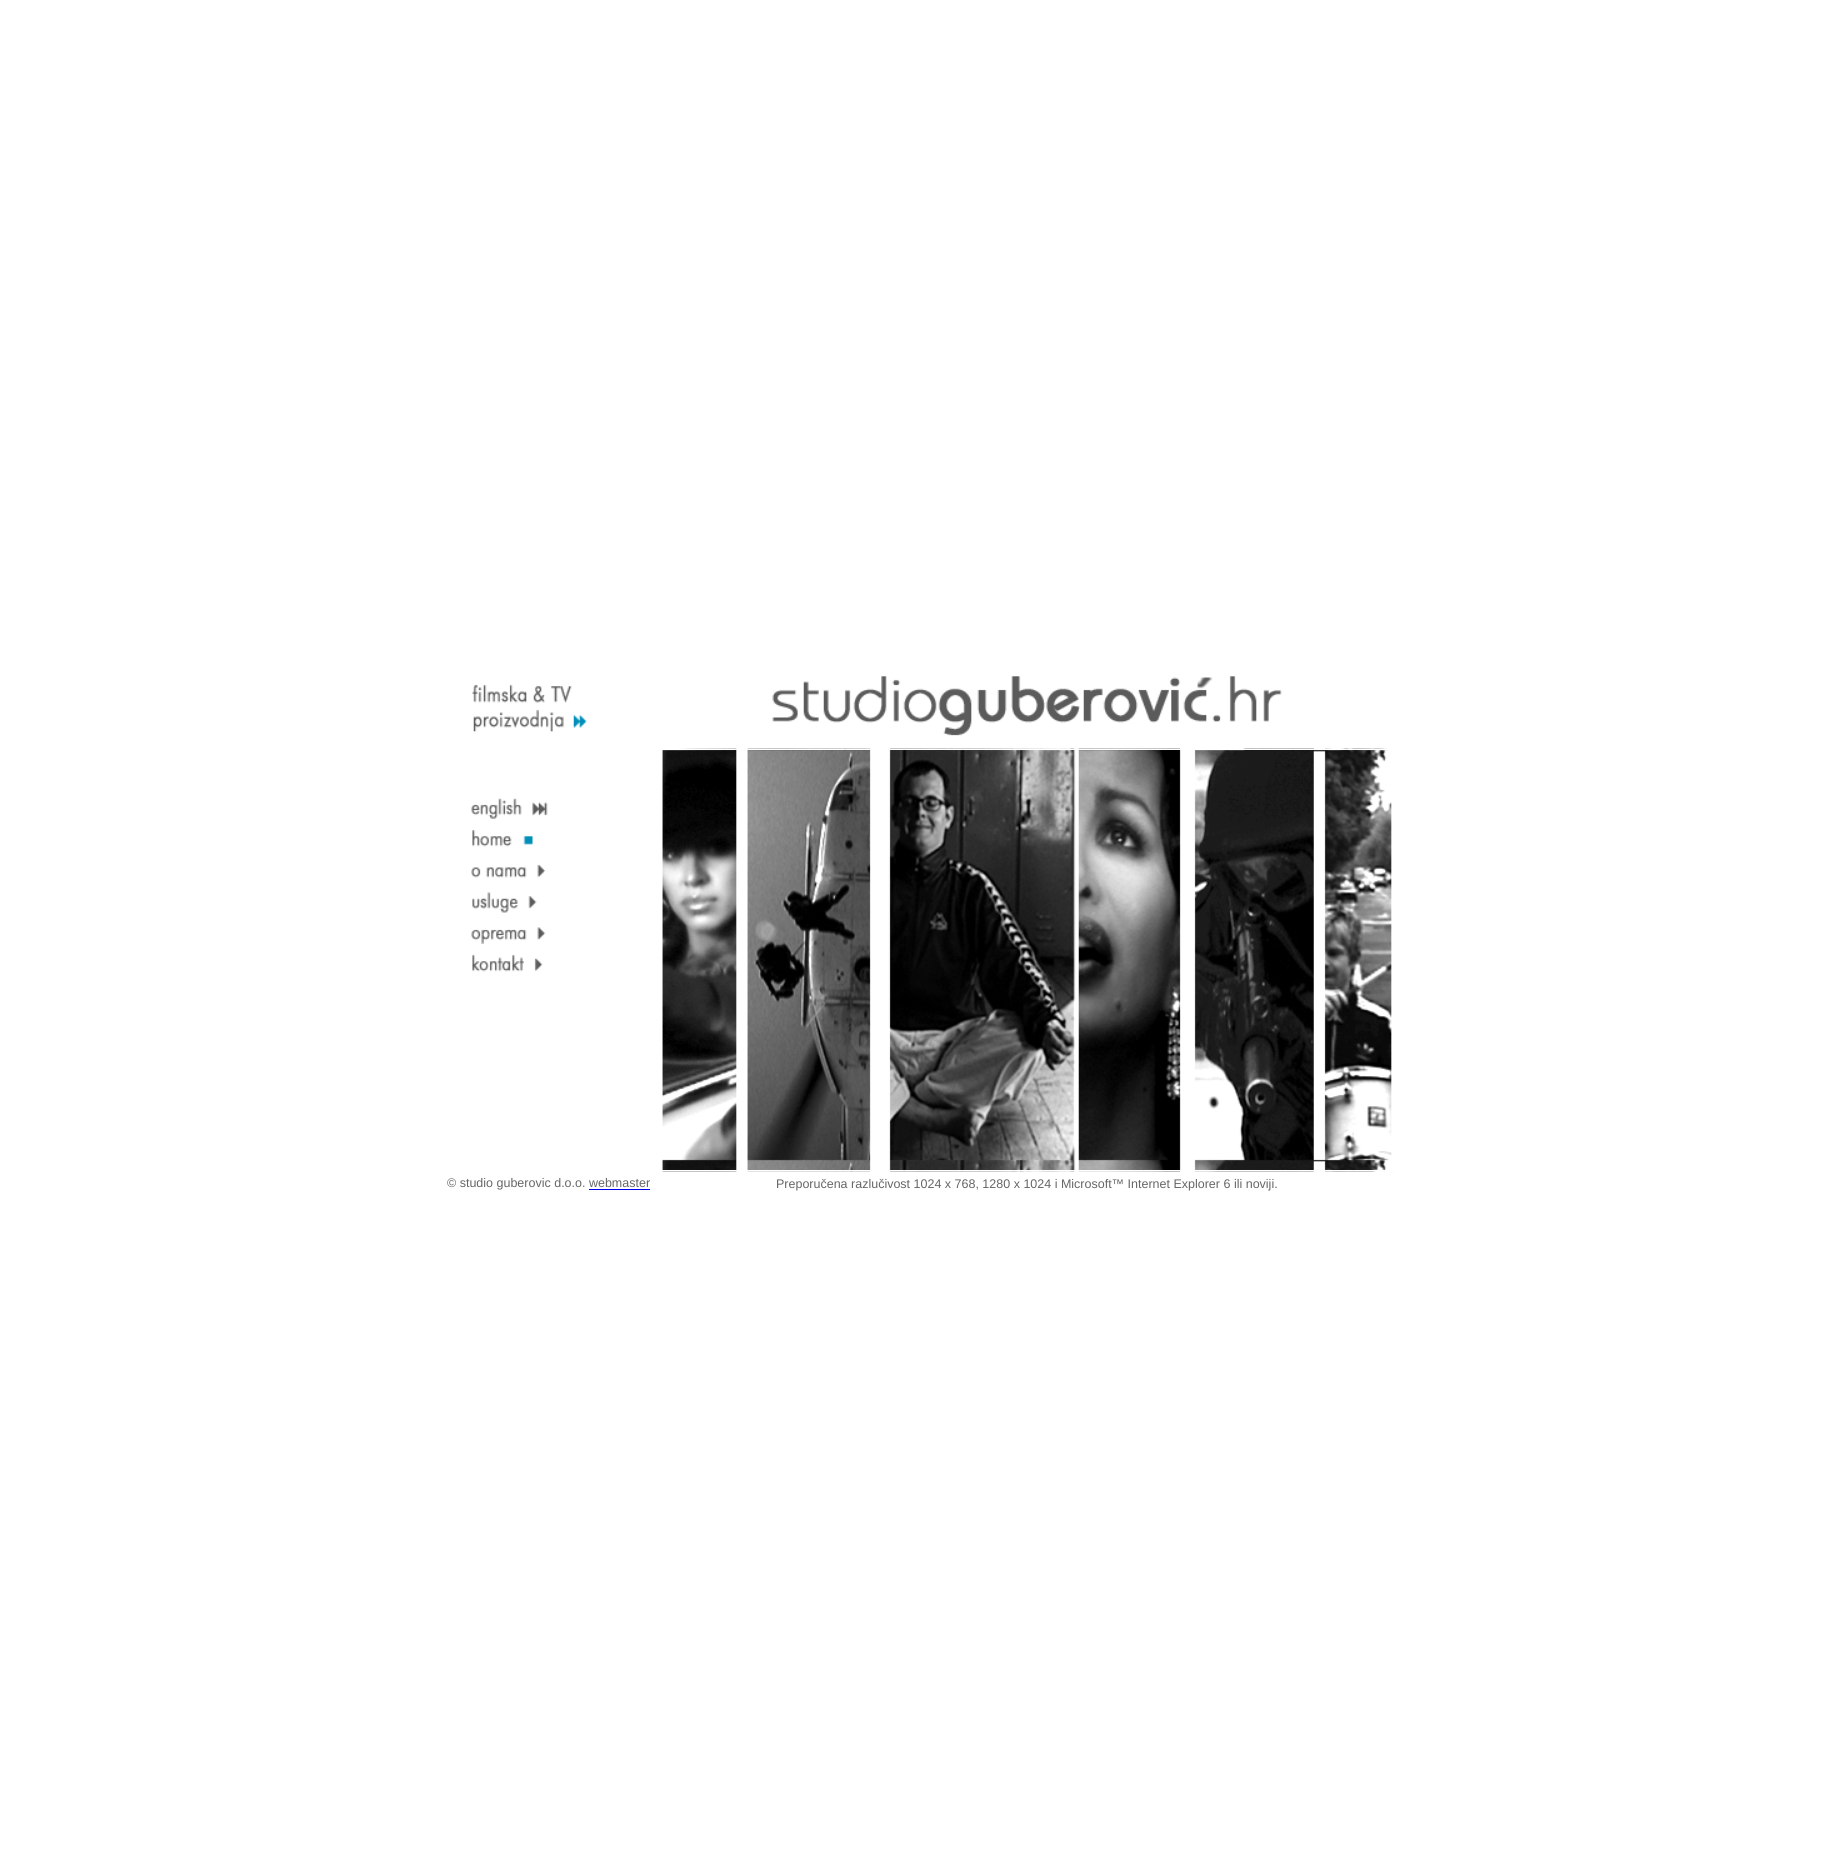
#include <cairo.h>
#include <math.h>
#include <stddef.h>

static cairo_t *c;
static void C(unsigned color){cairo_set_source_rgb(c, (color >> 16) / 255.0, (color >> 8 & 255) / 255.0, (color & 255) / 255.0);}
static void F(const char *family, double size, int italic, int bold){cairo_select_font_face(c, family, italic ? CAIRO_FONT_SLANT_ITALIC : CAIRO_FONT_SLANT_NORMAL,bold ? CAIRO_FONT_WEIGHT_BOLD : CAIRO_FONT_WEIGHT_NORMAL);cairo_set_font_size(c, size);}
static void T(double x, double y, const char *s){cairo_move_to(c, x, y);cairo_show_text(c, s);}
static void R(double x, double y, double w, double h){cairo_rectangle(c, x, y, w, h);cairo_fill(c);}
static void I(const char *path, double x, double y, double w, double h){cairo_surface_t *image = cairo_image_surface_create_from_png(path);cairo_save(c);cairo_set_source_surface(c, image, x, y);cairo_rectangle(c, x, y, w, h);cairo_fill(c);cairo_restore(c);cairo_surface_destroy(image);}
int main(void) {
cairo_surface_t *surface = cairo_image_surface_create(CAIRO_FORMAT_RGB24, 1833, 1856);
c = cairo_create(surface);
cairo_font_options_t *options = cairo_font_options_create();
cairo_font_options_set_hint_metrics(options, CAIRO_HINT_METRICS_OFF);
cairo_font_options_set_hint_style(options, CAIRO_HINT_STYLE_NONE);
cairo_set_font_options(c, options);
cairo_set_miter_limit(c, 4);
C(0xffffff);
cairo_paint(c);
I("1.png",472,684,115,48);
I("2.png",772,676,510,60);
I("3.png",471,798,77,21);
I("4.png",472,829,61,18);
I("5.png",471,864,75,14);
I("6.png",472,892,65,21);
I("7.png",471,927,75,17);
I("8.png",472,954,71,18);
I("9.png",660,748,734,424);
cairo_rectangle(c,660.5,749.5,733,421);
C(0xffffff);
cairo_set_line_width(c,1);
cairo_stroke(c);
F("Liberation Sans",12.5,0,0);
C(0x666666);
T(447,1187,"© studio guberovic d.o.o. webmaster");
C(0x0000ee);
R(589,1189,61,1);
C(0x666666);
T(776,1188,"Preporučena razlučivost 1024 x 768, 1280 x 1024 i Microsoft™ Internet Explorer 6 ili noviji.");
cairo_surface_write_to_png(surface, "o.png");
cairo_font_options_destroy(options);
cairo_destroy(c);
cairo_surface_destroy(surface);
return 0;
}
